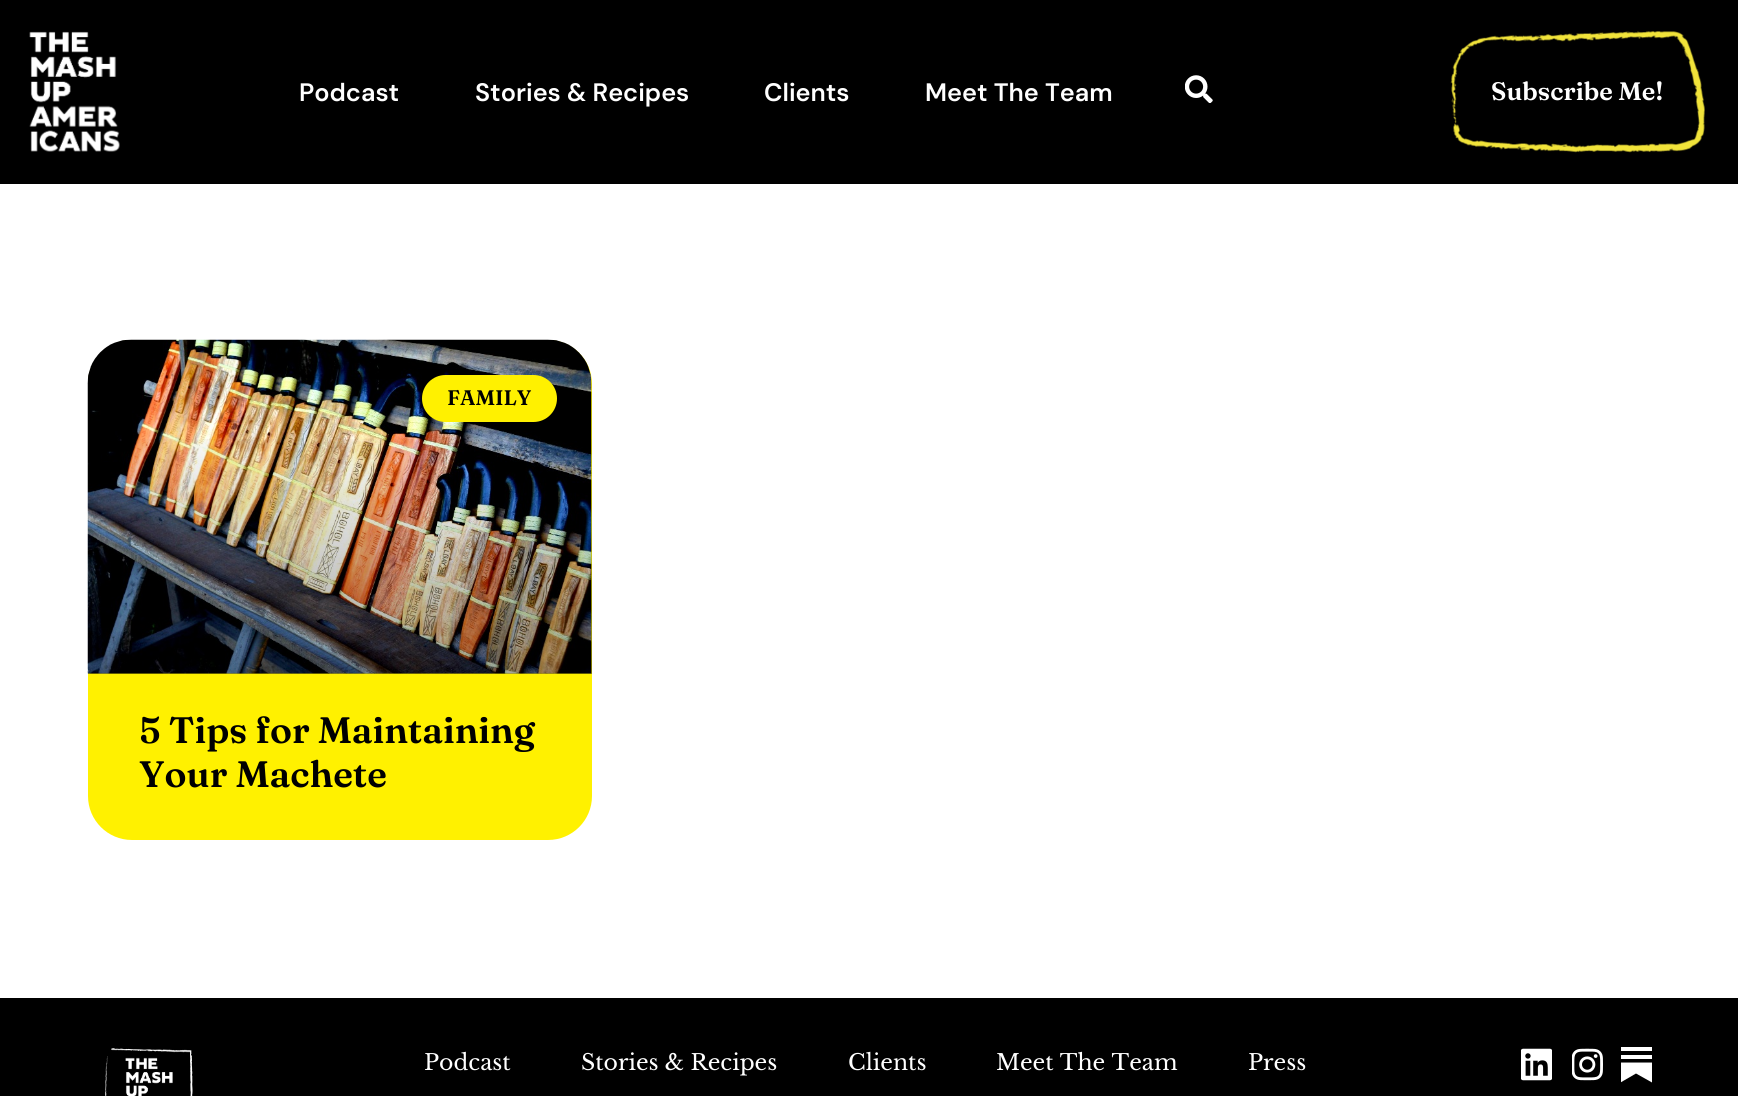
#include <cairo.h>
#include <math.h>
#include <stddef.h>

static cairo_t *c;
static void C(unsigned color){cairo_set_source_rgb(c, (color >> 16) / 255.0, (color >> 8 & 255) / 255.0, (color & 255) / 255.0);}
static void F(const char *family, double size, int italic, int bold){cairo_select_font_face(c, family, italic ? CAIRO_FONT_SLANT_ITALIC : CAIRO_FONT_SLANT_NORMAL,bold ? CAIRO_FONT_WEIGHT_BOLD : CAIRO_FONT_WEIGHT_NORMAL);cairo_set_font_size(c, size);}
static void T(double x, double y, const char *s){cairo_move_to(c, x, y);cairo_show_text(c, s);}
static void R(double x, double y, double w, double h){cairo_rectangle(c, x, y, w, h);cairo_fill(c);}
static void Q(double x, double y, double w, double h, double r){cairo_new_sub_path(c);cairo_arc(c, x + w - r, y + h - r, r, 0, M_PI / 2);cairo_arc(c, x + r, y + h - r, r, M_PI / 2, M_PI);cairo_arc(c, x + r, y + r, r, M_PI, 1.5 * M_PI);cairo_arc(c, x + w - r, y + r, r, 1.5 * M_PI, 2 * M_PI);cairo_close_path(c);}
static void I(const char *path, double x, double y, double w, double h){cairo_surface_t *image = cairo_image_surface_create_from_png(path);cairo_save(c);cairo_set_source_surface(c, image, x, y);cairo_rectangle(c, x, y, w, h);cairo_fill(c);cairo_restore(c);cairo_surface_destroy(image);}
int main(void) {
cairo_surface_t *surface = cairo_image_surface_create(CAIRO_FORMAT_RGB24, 1738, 1096);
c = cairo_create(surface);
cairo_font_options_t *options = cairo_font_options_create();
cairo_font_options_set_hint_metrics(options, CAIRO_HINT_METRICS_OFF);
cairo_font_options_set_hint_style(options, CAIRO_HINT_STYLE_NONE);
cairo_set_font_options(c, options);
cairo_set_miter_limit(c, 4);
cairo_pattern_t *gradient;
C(0xffffff);
cairo_paint(c);
C(0x000000);
R(0,0,1738,184);
I("1.png",29,31,91,121);
F("DM Sans SemiBold",25.25,0,0);
C(0xffffff);
T(299,101,"Podcast");
T(475,101,"Stories & Recipes");
T(764,101,"Clients");
T(925,101,"Meet The Team");
I("2.png",1185,75,28,28);
F("Fraunces SemiBold",25.25,0,0);
T(1491,100,"Subscribe Me!");
I("3.png",1450,31,255,122);
C(0xfff100);
Q(88,340,504,500,44);
cairo_fill(c);
I("4.png",87,339,505,335);
gradient = cairo_pattern_create_linear(340,674,340,340);
cairo_pattern_add_color_stop_rgba(gradient,0,0,0,0,.35);
cairo_pattern_add_color_stop_rgba(gradient,.75,0,0,0,0);
cairo_set_source(c,gradient);
cairo_pattern_destroy(gradient);
R(88,439,504,235);
C(0xfff100);
Q(422,375,135,47,23.5);
cairo_fill(c);
F("Fraunces SemiBold",21,0,0);
C(0x000000);
T(447,405,"FAMILY");
F("Fraunces SemiBold",36.75,0,0);
T(139,743,"5 Tips for Maintaining");
T(139,787,"Your Machete");
R(0,998,1738,98);
I("5.png",105,1048,88,48);
F("Libre Baskerville",22,0,0);
C(0xffffff);
T(424,1070,"Podcast");
T(581,1070,"Stories & Recipes");
T(848,1070,"Clients");
T(996,1070,"Meet The Team");
T(1248,1070,"Press");
I("6.png",1521,1048,31,33);
I("7.png",1572,1048,31,33);
cairo_save(c);
cairo_rectangle(c,1621,1047,31,36);
cairo_clip(c);
cairo_new_path(c);
cairo_move_to(c,1652,1062.5);
cairo_line_to(c,1652,1082.5);
cairo_line_to(c,1636,1073.5);
cairo_line_to(c,1620.5,1082.5);
cairo_line_to(c,1620.5,1062.5);
cairo_close_path(c);
cairo_fill(c);
cairo_restore(c);
R(1621,1047,31,4);
R(1621,1055,31,4);
cairo_surface_write_to_png(surface, "o.png");
cairo_font_options_destroy(options);
cairo_destroy(c);
cairo_surface_destroy(surface);
return 0;
}
